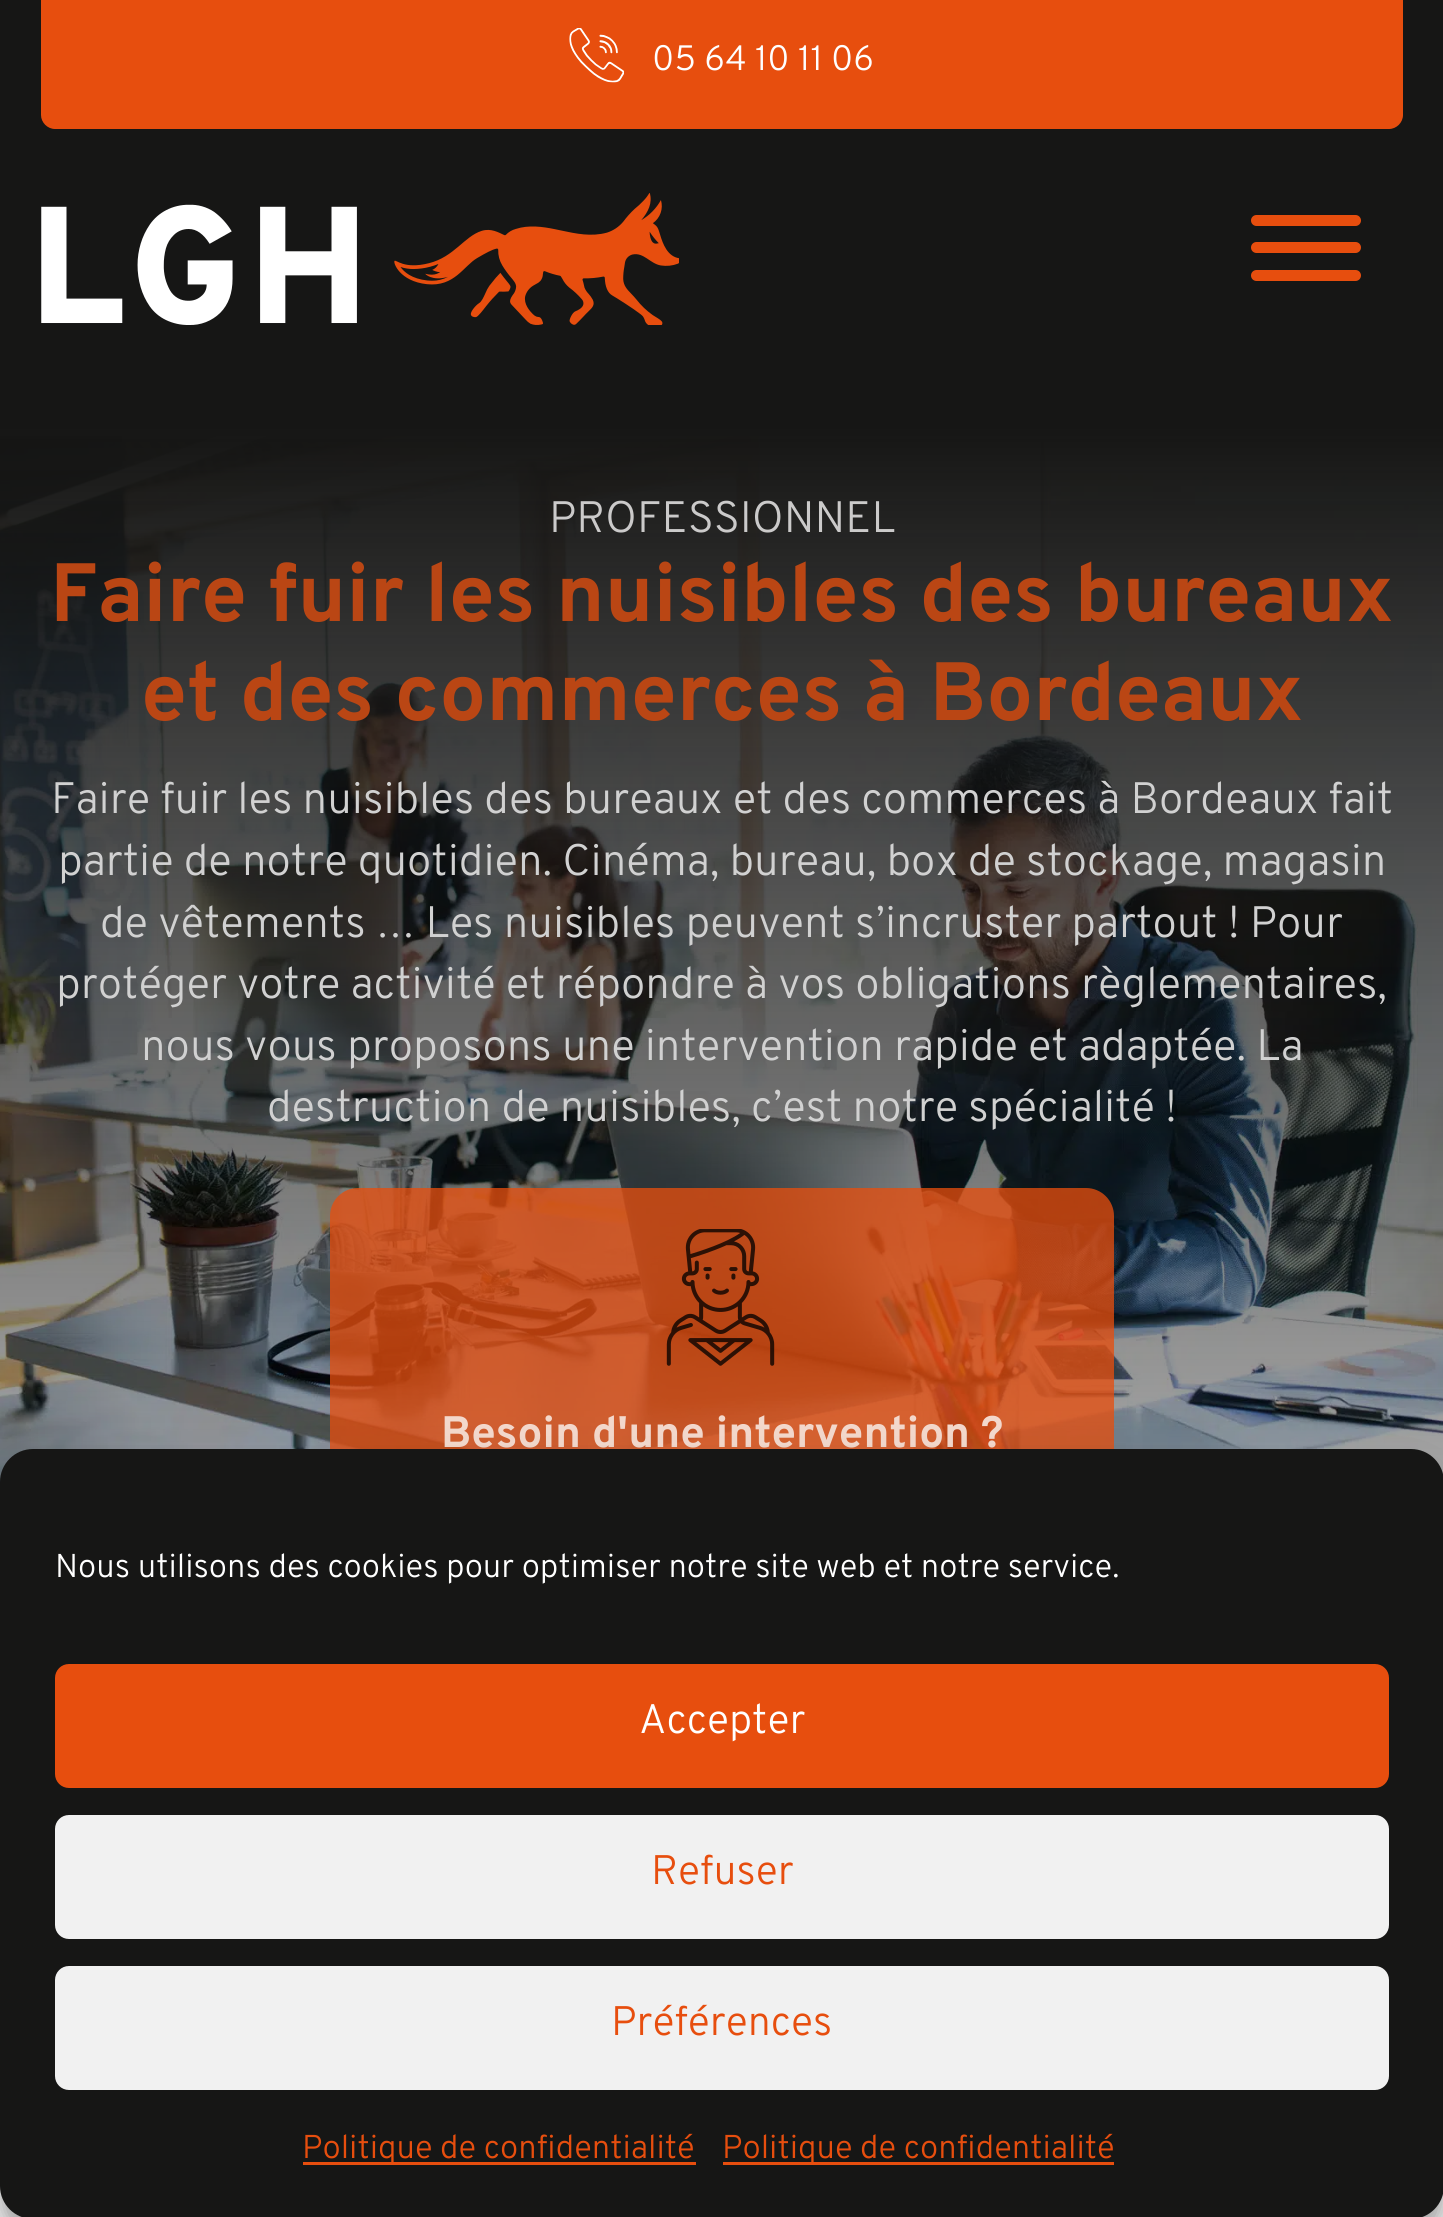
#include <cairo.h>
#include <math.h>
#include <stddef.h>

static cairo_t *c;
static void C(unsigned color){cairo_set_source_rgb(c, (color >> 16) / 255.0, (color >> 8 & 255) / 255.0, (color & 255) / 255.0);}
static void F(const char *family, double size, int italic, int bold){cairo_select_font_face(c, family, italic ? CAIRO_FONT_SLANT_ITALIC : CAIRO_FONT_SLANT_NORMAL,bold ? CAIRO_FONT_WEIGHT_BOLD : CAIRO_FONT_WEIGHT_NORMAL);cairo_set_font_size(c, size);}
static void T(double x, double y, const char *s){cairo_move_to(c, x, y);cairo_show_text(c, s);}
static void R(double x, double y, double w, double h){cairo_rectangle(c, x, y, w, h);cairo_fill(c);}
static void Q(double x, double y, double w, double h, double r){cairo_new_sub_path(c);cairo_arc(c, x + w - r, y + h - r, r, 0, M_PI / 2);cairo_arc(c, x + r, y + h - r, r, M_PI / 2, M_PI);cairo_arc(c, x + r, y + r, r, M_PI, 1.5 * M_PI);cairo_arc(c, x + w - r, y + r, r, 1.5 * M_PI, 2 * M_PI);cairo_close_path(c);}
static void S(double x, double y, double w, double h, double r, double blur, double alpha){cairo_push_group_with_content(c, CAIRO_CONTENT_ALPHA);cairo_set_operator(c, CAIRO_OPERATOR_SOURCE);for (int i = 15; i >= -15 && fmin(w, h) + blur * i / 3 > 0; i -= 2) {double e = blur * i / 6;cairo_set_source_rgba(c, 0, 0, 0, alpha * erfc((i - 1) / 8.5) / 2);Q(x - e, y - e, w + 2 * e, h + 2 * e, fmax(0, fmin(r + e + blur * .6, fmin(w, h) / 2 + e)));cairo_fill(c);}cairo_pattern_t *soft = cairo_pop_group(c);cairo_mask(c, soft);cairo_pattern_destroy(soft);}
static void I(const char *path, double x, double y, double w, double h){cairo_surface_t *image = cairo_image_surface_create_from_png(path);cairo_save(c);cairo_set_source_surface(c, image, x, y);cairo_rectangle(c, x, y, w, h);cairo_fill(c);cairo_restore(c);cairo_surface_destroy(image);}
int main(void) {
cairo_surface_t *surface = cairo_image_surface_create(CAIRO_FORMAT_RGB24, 1443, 2217);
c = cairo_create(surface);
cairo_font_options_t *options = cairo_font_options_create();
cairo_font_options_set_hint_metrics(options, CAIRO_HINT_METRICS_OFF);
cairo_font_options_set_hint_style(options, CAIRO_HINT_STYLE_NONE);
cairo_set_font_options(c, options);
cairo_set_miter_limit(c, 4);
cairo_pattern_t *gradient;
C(0xffffff);
cairo_paint(c);
C(0x161615);
R(0,0,1443,426);
C(0xe74e0e);
cairo_new_path(c);
cairo_move_to(c,41,0);
cairo_line_to(c,1403,0);
cairo_line_to(c,1403,115);
cairo_curve_to(c,1403,122.5,1396.5,129,1389,129);
cairo_line_to(c,55,129);
cairo_curve_to(c,47.5,129,41,122.5,41,115);
cairo_close_path(c);
cairo_fill(c);
I("1.png",569,28,55,55);
F("Overpass Light",35.25,0,0);
C(0xffffff);
T(652,70,"05 64 10 11 06");
I("2.png",41,193,638,132);
C(0xe74e0e);
Q(1251,270,110,11,5.5);
cairo_fill(c);
Q(1251,215,110,11,5.5);
cairo_fill(c);
Q(1251,242,110,11,5.5);
cairo_fill(c);
I("3.png",0,436,1443,1046);
gradient = cairo_pattern_create_linear(722,426,722,1540);
cairo_pattern_add_color_stop_rgba(gradient,0,0.086,0.086,0.082,1);
cairo_pattern_add_color_stop_rgba(gradient,1,0,0,0,.31);
cairo_set_source(c,gradient);
cairo_pattern_destroy(gradient);
R(0,426,1443,1056);
F("Overpass Light",44,0,0);
C(0xcbcaca);
T(549,532,"PROFESSIONNEL");
F("Overpass",82.5,0,1);
C(0xba4614);
T(50,621,"Faire fuir les nuisibles des bureaux");
T(141,720,"et des commerces à Bordeaux");
F("Overpass Light",44,0,0);
C(0xd1d1d1);
T(51,813,"Faire fuir les nuisibles des bureaux et des commerces à Bordeaux fait");
T(58,875,"partie de notre quotidien. Cinéma, bureau, box de stockage, magasin");
T(100,937,"de vêtements … Les nuisibles peuvent s’incruster partout ! Pour");
T(56,998,"protéger votre activité et répondre à vos obligations règlementaires,");
T(141,1060,"nous vous proposons une intervention rapide et adaptée. La");
T(267,1121,"destruction de nuisibles, c’est notre spécialité !");
cairo_set_source_rgba(c,0.906,0.306,0.055,0.76);
Q(330,1188,784,322,28);
cairo_fill(c);
I("4.png",666,1229,109,137);
F("Overpass",44,0,1);
C(0xf4d9cd);
T(441,1447,"Besoin d'une intervention ?");
C(0x000000);
S(0,1466,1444,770,33,8,.23);
S(0,1477,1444,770,33,27.5,.19);
C(0x161615);
Q(0,1449,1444,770,33);
cairo_fill(c);
F("Overpass Light",33,0,0);
C(0xffffff);
T(55,1577,"Nous utilisons des cookies pour optimiser notre site web et notre service.");
C(0xe74e0e);
Q(56.5,1665.5,1331,121,12.5);
cairo_fill_preserve(c);
cairo_set_line_width(c,3);
cairo_stroke(c);
F("Overpass Light",41.25,0,0);
C(0xffffff);
T(639,1733,"Accepter");
C(0xf1f1f1);
Q(56.5,1816.5,1331,121,12.5);
cairo_fill_preserve(c);
cairo_stroke(c);
C(0xe74e0e);
T(651,1884,"Refuser");
C(0xf1f1f1);
Q(56.5,1967.5,1331,121,12.5);
cairo_fill_preserve(c);
cairo_stroke(c);
C(0xe74e0e);
T(611,2035,"Préférences");
R(303,2162,393,3);
F("Overpass Light",33,0,0);
T(302,2158,"Politique de confidentialité");
R(723,2162,391,3);
T(722,2158,"Politique de confidentialité");
cairo_surface_write_to_png(surface, "o.png");
cairo_font_options_destroy(options);
cairo_destroy(c);
cairo_surface_destroy(surface);
return 0;
}
